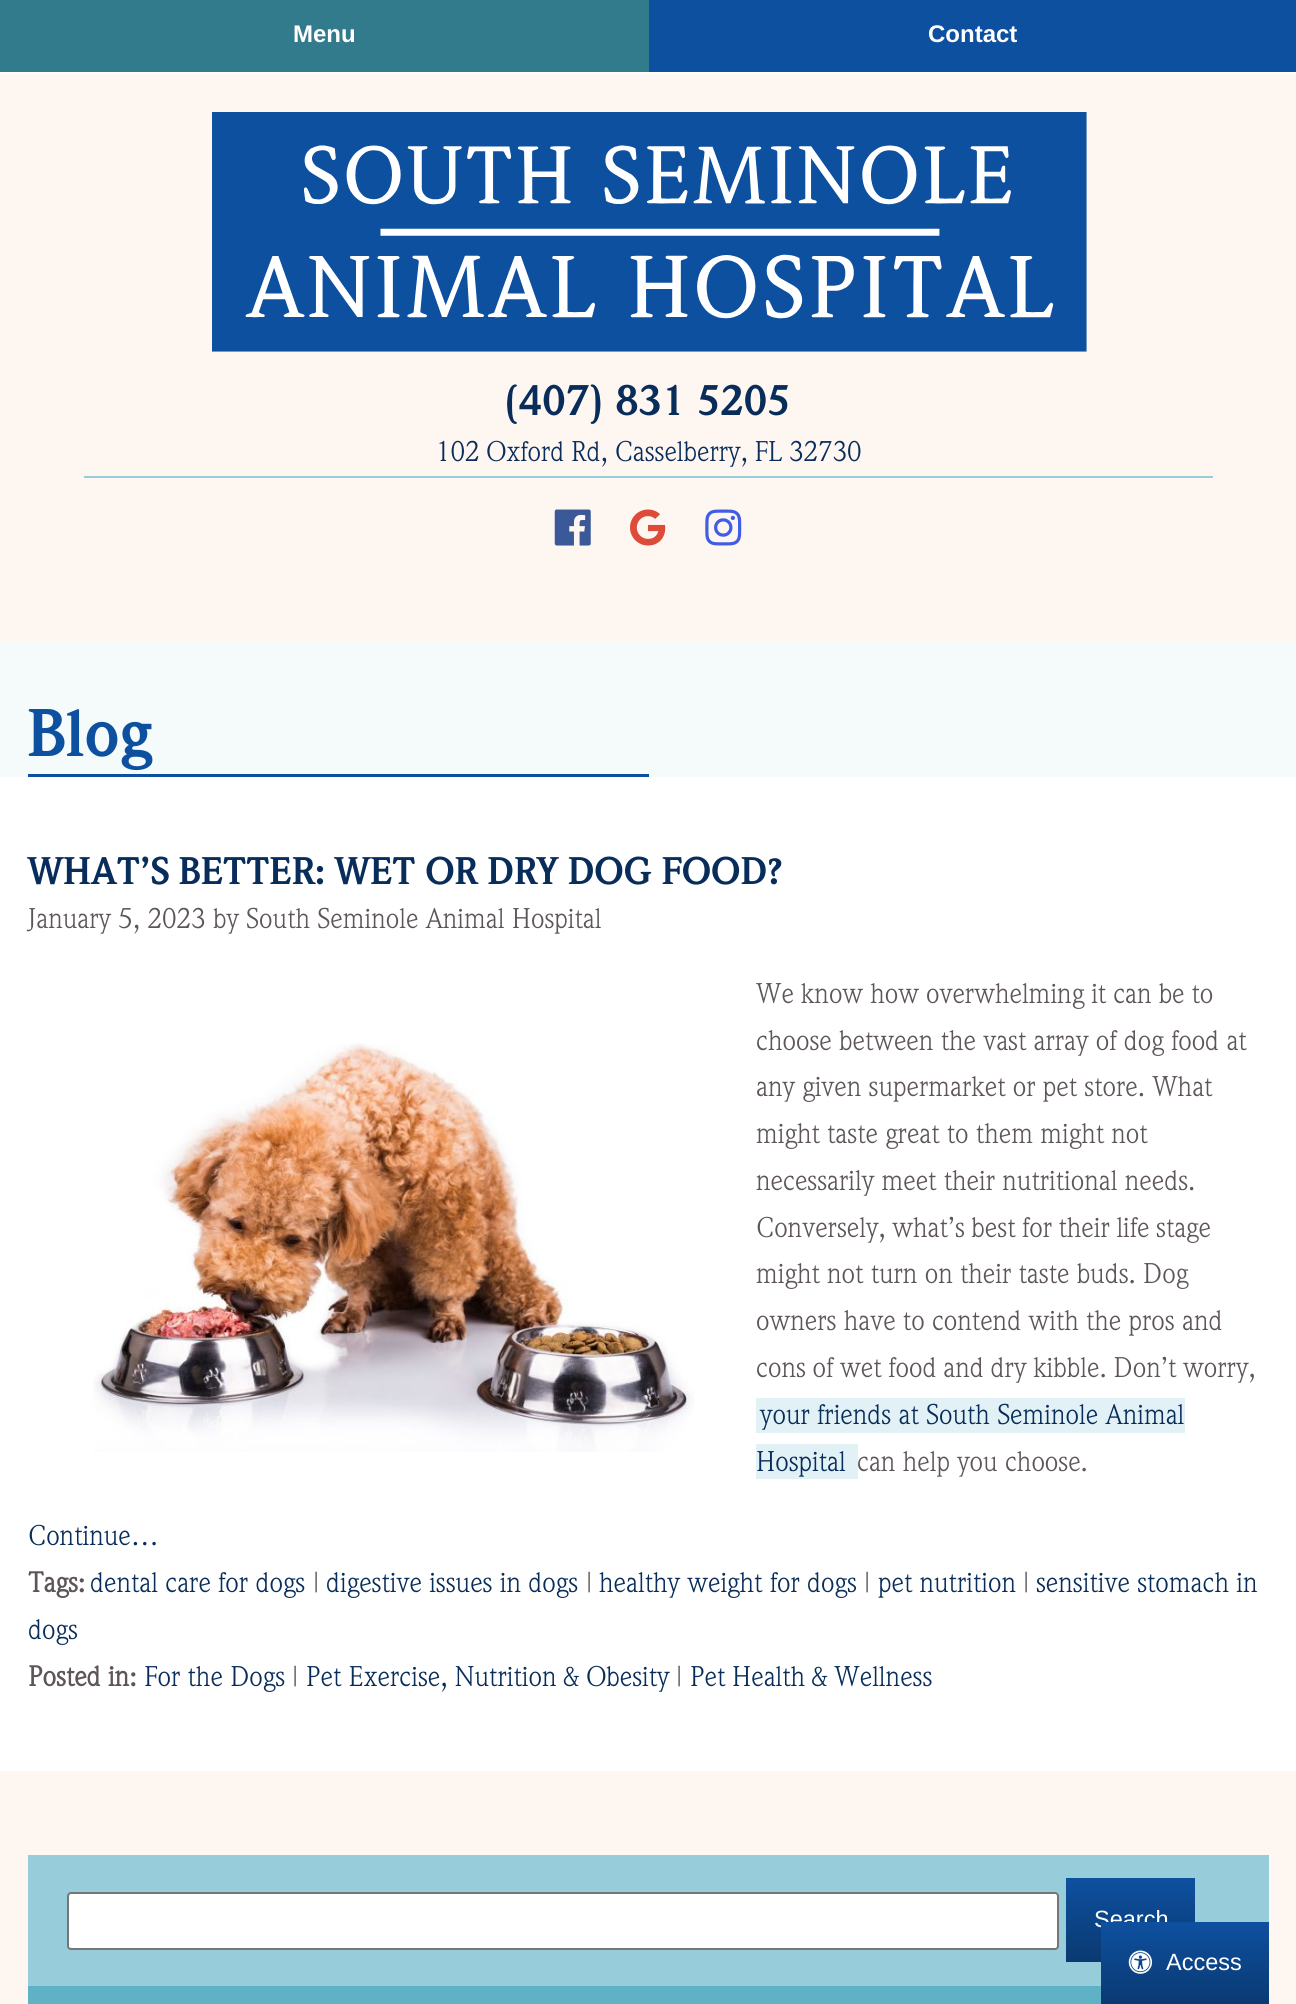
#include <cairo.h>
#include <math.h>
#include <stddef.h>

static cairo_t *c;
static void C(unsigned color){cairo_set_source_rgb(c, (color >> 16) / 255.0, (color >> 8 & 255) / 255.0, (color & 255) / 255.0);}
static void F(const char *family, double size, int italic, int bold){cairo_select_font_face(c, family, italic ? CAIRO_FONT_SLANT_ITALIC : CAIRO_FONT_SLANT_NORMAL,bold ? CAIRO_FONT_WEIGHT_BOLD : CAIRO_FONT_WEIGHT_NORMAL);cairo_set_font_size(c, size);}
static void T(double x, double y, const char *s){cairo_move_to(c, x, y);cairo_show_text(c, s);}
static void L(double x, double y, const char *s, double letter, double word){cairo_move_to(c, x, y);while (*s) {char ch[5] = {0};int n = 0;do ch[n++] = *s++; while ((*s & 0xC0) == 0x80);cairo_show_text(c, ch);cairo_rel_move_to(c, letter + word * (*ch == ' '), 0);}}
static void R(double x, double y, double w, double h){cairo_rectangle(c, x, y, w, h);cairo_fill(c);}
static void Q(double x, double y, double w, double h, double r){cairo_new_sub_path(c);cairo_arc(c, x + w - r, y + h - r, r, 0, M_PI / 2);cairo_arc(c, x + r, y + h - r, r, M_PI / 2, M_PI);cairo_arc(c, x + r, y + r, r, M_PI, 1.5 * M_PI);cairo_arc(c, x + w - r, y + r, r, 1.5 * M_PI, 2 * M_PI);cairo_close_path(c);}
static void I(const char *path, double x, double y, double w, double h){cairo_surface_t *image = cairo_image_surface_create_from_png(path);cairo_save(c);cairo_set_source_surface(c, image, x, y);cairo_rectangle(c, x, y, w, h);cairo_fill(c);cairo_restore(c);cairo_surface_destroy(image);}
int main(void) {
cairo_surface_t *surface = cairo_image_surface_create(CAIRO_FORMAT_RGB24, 1296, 2004);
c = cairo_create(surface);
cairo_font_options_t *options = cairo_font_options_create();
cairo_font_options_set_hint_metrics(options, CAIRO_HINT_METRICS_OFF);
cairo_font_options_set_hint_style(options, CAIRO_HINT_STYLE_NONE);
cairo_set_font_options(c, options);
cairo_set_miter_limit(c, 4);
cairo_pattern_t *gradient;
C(0xfef6f1);
cairo_paint(c);
C(0xffffff);
R(0,72,1296,2);
C(0x327b8d);
R(0,0,649,72);
F("Liberation Sans",24,0,1);
C(0xffffff);
T(293,42,"Menu");
C(0x0e50a0);
R(649,0,647,72);
C(0xffffff);
T(928,42,"Contact");
I("1.png",212,112,875,240);
C(0x97cdda);
R(84,476,1129,2);
F("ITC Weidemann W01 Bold",42,0,1);
C(0x082d5a);
T(504,415,"(407) 831‑5205");
F("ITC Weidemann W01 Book",28,0,0);
L(436,461,"102 Oxford Rd, Casselberry, FL 32730",0,-.5);
I("2.png",554,509,37,37);
I("3.png",630,509,36,37);
I("4.png",705,509,37,37);
C(0xf5fafb);
R(0,642,1296,135);
F("ITC Weidemann W01 Bold",66,0,1);
C(0x0e50a0);
T(28,756,"Blog");
R(28,774,621,3);
C(0xffffff);
R(0,777,1296,994);
F("ITC Weidemann W01 Bold",37.75,0,1);
C(0x082d5a);
L(28,884,"WHAT’S BETTER: WET OR DRY DOG FOOD?",0,-.75);
F("ITC Weidemann W01 Book",28,0,0);
C(0x5e5656);
T(28,928,"January 5, 2023 by South Seminole Animal Hospital");
I("5.png",93,1043,601,409);
L(756,1003,"We know how overwhelming it can be to",0,-.25);
T(756,1050,"choose between the vast array of dog food at");
T(756,1096,"any given supermarket or pet store. What");
T(756,1143,"might taste great to them might not");
T(756,1190,"necessarily meet their nutritional needs.");
L(756,1237,"Conversely, what’s best for their life stage",0,-.75);
T(756,1283,"might not turn on their taste buds. Dog");
T(756,1330,"owners have to contend with the pros and");
L(756,1377,"cons of wet food and dry kibble. Don’t worry,",0,-.5);
C(0xe2f1f5);
R(756,1398,429,35);
C(0x082d5a);
T(760,1424,"your friends at South Seminole Animal");
C(0xe2f1f5);
R(756,1444,102,35);
C(0x082d5a);
T(756,1471,"Hospital");
C(0x5e5656);
T(857,1471,"can help you choose.");
C(0x082d5a);
T(28,1545,"Continue…");
F("ITC Weidemann W01 Book",28,0,1);
C(0x5e5656);
T(28,1592,"Tags:");
F("ITC Weidemann W01 Book",28,0,0);
C(0x082d5a);
T(90,1592,"dental care for dogs");
C(0x5e5656);
T(313,1592,"|");
C(0x082d5a);
T(326,1592,"digestive issues in dogs");
C(0x5e5656);
T(586,1592,"|");
C(0x082d5a);
T(599,1592,"healthy weight for dogs");
C(0x5e5656);
T(864,1592,"|");
C(0x082d5a);
T(878,1592,"pet nutrition");
C(0x5e5656);
T(1023,1592,"|");
C(0x082d5a);
T(1036,1592,"sensitive stomach in");
T(28,1639,"dogs");
F("ITC Weidemann W01 Book",28,0,1);
C(0x5e5656);
T(28,1686,"Posted in:");
F("ITC Weidemann W01 Book",28,0,0);
C(0x082d5a);
T(144,1686,"For the Dogs");
C(0x5e5656);
T(292,1686,"|");
C(0x082d5a);
T(306,1686,"Pet Exercise, Nutrition & Obesity");
C(0x5e5656);
T(676,1686,"|");
C(0x082d5a);
L(690,1686,"Pet Health & Wellness",0,-.5);
C(0x97cdda);
R(28,1855,1241,131);
C(0xffffff);
Q(68,1893,990,56,3);
cairo_fill_preserve(c);
C(0x767676);
cairo_stroke(c);
gradient = cairo_pattern_create_linear(1131,1878,1131,1962);
cairo_pattern_add_color_stop_rgba(gradient,0,0.055,0.314,0.627,1);
cairo_pattern_add_color_stop_rgba(gradient,1,0.039,0.224,0.443,1);
cairo_set_source(c,gradient);
cairo_pattern_destroy(gradient);
R(1066,1878,129,84);
F("Liberation Sans",23.5,0,0);
C(0xffffff);
T(1094,1927,"Search");
C(0x5fb2c6);
R(28,1986,1073,18);
gradient = cairo_pattern_create_linear(1185,1922,1185,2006);
cairo_pattern_add_color_stop_rgba(gradient,0,0.055,0.314,0.627,1);
cairo_pattern_add_color_stop_rgba(gradient,1,0.039,0.224,0.443,1);
cairo_set_source(c,gradient);
cairo_pattern_destroy(gradient);
R(1101,1922,168,82);
I("6.png",1128,1950,25,24);
C(0xffffff);
T(1166,1970,"Access");
cairo_surface_write_to_png(surface, "o.png");
cairo_font_options_destroy(options);
cairo_destroy(c);
cairo_surface_destroy(surface);
return 0;
}
